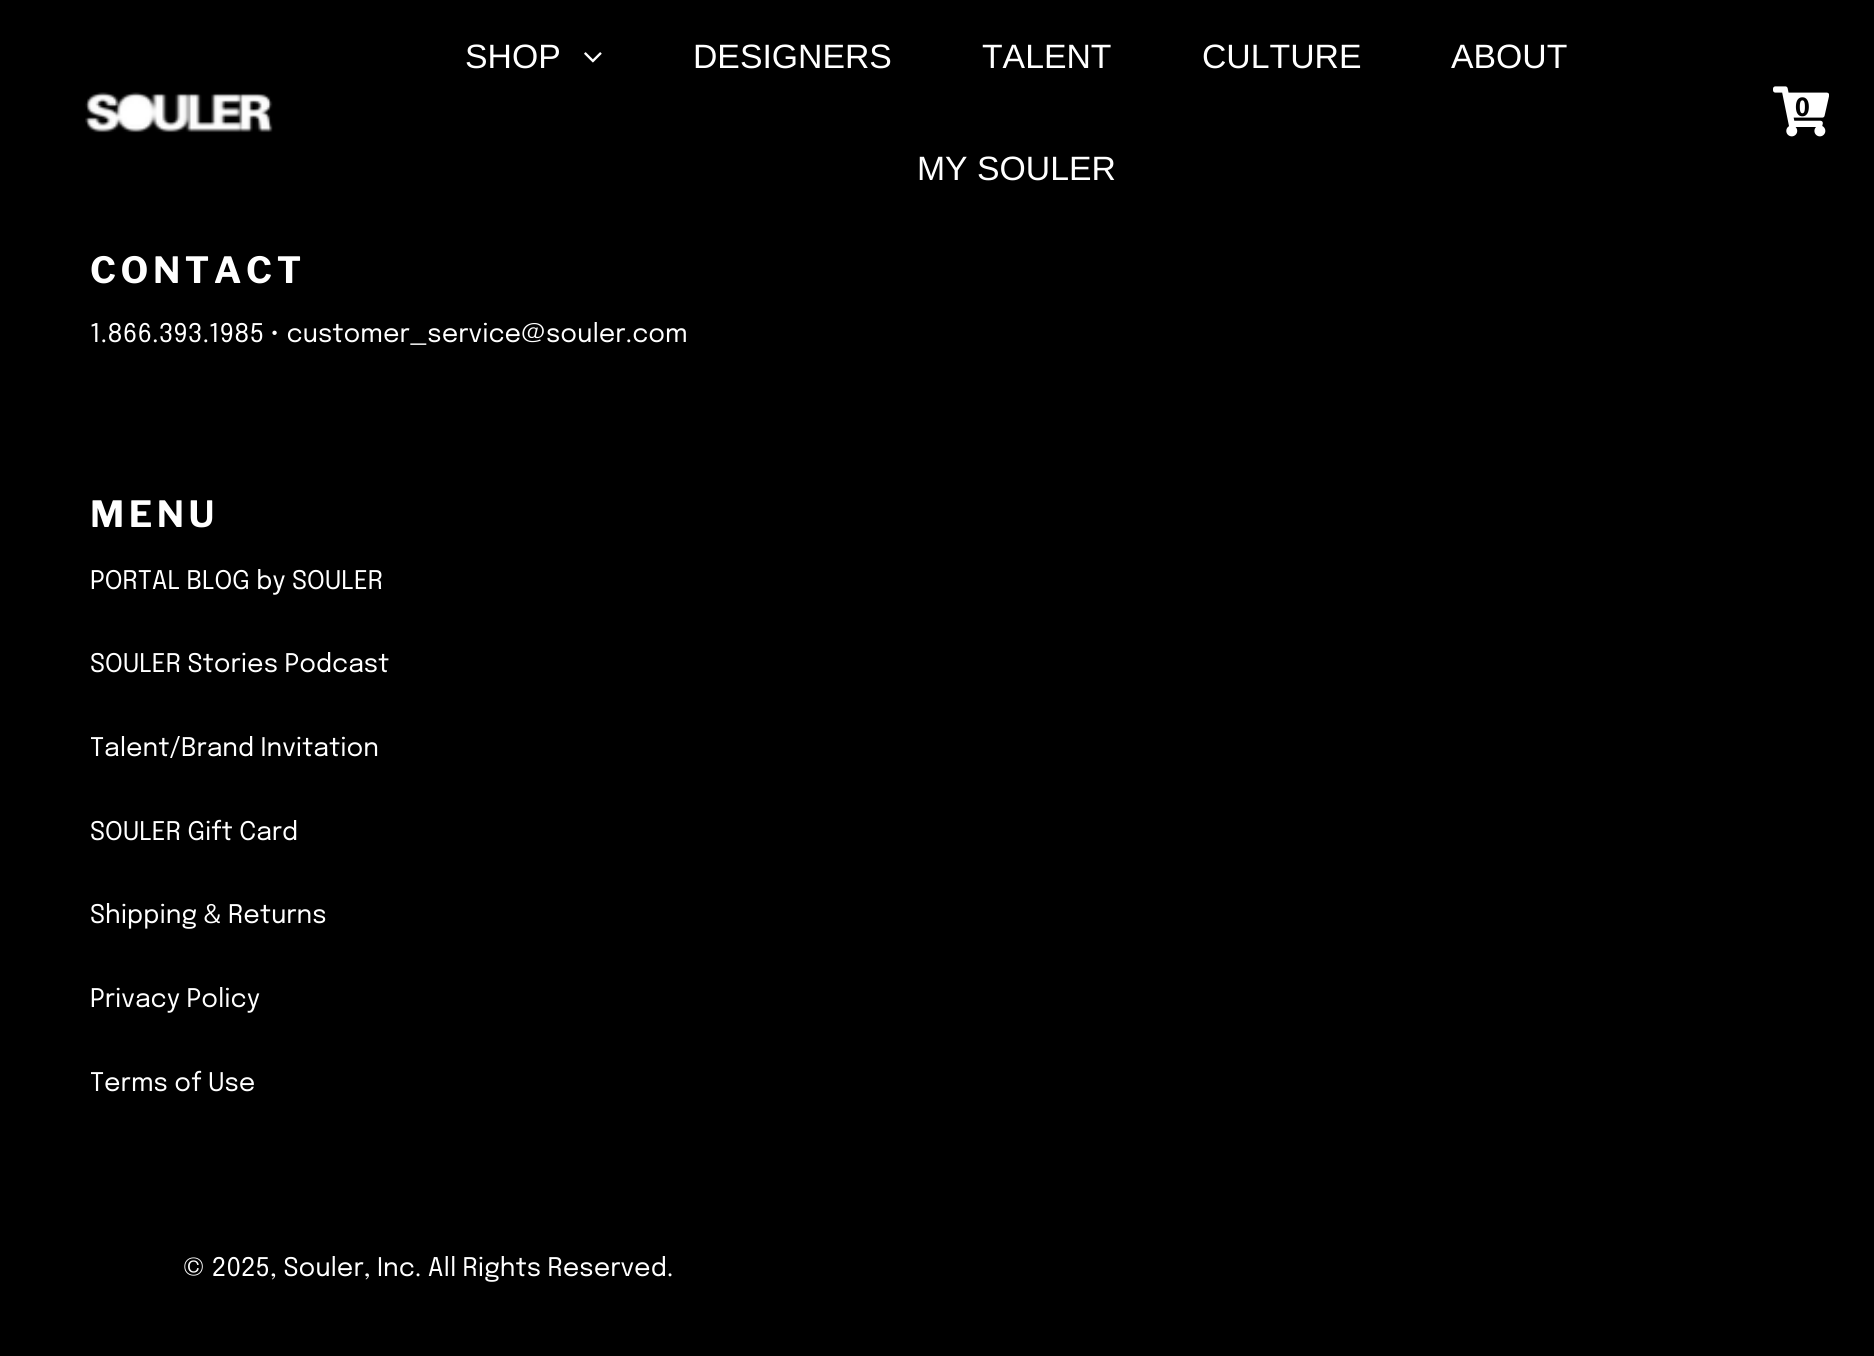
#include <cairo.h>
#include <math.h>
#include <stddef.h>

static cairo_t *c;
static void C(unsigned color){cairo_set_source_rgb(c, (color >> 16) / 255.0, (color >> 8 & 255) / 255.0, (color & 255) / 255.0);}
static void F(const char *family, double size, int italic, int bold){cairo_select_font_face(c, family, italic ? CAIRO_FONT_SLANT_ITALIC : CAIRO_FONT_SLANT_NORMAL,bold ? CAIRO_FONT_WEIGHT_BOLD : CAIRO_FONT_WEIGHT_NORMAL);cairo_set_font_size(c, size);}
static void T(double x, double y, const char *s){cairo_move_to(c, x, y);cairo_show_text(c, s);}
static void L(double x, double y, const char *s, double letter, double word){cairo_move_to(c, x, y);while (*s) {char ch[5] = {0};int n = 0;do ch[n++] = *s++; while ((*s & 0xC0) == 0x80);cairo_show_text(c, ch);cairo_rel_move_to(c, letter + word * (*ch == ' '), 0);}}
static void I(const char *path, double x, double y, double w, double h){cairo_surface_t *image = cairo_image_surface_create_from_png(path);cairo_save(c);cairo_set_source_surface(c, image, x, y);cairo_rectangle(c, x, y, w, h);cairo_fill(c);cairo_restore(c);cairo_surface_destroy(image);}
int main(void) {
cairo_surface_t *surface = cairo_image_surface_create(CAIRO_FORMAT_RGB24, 1874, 1356);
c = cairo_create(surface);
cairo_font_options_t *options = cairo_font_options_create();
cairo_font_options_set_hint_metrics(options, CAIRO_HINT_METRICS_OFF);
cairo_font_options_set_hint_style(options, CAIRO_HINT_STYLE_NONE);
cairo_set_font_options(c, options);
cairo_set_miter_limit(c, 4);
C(0x000000);
cairo_paint(c);
I("1.png",85,92,188,41);
F("Liberation Sans",33.75,0,0);
C(0xffffff);
T(465,68,"SHOP");
I("2.png",584,52,18,11);
T(693,68,"DESIGNERS");
T(982,68,"TALENT");
T(1202,68,"CULTURE");
T(1451,68,"ABOUT");
T(917,180,"MY SOULER");
I("3.png",1773,86,56,51);
F("Epilogue",25,0,1);
C(0x000000);
T(1795,116,"0");
F("Libre Franklin",36,0,1);
C(0xffffff);
L(90,283,"CONTACT",4.5,0);
F("Epilogue",25.6,0,0);
T(90,342,"1.866.393.1985 • customer_service@souler.com");
F("Libre Franklin",36,0,1);
L(90,527,"MENU",4.5,0);
F("Epilogue",25.6,0,0);
T(90,589,"PORTAL BLOG by SOULER");
T(90,672,"SOULER Stories Podcast");
T(90,756,"Talent/Brand Invitation");
T(90,840,"SOULER Gift Card");
T(90,923,"Shipping & Returns");
T(90,1007,"Privacy Policy");
T(90,1091,"Terms of Use");
T(183,1276,"© 2025, Souler, Inc. All Rights Reserved.");
cairo_surface_write_to_png(surface, "o.png");
cairo_font_options_destroy(options);
cairo_destroy(c);
cairo_surface_destroy(surface);
return 0;
}
